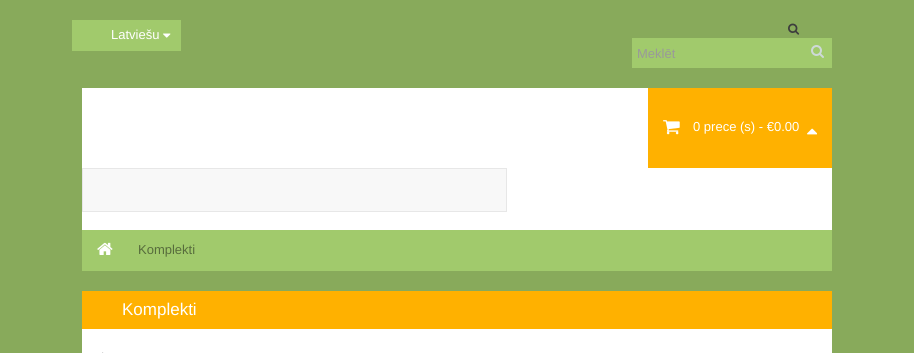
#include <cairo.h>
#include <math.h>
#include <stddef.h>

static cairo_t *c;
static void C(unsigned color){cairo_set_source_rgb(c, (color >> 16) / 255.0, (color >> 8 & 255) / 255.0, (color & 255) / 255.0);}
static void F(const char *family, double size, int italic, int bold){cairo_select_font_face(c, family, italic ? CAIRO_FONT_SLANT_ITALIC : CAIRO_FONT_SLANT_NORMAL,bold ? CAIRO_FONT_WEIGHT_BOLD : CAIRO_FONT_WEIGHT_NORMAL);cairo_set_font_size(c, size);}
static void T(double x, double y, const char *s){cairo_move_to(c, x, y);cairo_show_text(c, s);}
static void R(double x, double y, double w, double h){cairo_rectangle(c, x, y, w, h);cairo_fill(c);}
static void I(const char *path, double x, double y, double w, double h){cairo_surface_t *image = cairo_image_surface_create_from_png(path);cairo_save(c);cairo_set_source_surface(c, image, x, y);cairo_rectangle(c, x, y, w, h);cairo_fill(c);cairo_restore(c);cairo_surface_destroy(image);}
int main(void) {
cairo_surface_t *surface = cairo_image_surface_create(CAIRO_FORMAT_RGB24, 914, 353);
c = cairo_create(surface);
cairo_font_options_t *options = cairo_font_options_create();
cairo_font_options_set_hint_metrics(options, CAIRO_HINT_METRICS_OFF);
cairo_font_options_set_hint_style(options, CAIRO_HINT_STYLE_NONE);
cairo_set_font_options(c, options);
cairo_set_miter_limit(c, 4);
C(0x88aa5b);
cairo_paint(c);
C(0xa1ca6c);
R(72,20,109,31);
F("Liberation Sans",13,0,0);
C(0xffffff);
T(111,39,"Latviešu");
I("1.png",163,33,8,5);
I("2.png",788,23,12,12);
C(0xa1ca6c);
R(632,38,200,30);
C(0x999999);
T(637,58,"Meklēt");
I("3.png",811,45,13,13);
C(0xffffff);
R(82,88,750,142);
C(0xffb100);
R(648,88,184,80);
I("4.png",663,120,17,15);
C(0xffffff);
T(693,131,"0 prece (s) - €0.00");
I("5.png",807,128,10,7);
C(0xf8f8f8);
cairo_rectangle(c,82.5,168.5,424,43);
cairo_fill_preserve(c);
C(0xe7e7e7);
cairo_set_line_width(c,1);
cairo_stroke(c);
C(0xa1ca6c);
R(82,230,750,41);
I("6.png",97,242,16,13);
C(0x576c3c);
T(138,254,"Komplekti");
C(0xffffff);
R(82,329,750,24);
C(0xffb100);
R(82,291,750,38);
F("Liberation Sans",17,0,0);
C(0xffffff);
T(122,315,"Komplekti");
I("7.png",102,352,2,1);
cairo_surface_write_to_png(surface, "o.png");
cairo_font_options_destroy(options);
cairo_destroy(c);
cairo_surface_destroy(surface);
return 0;
}
